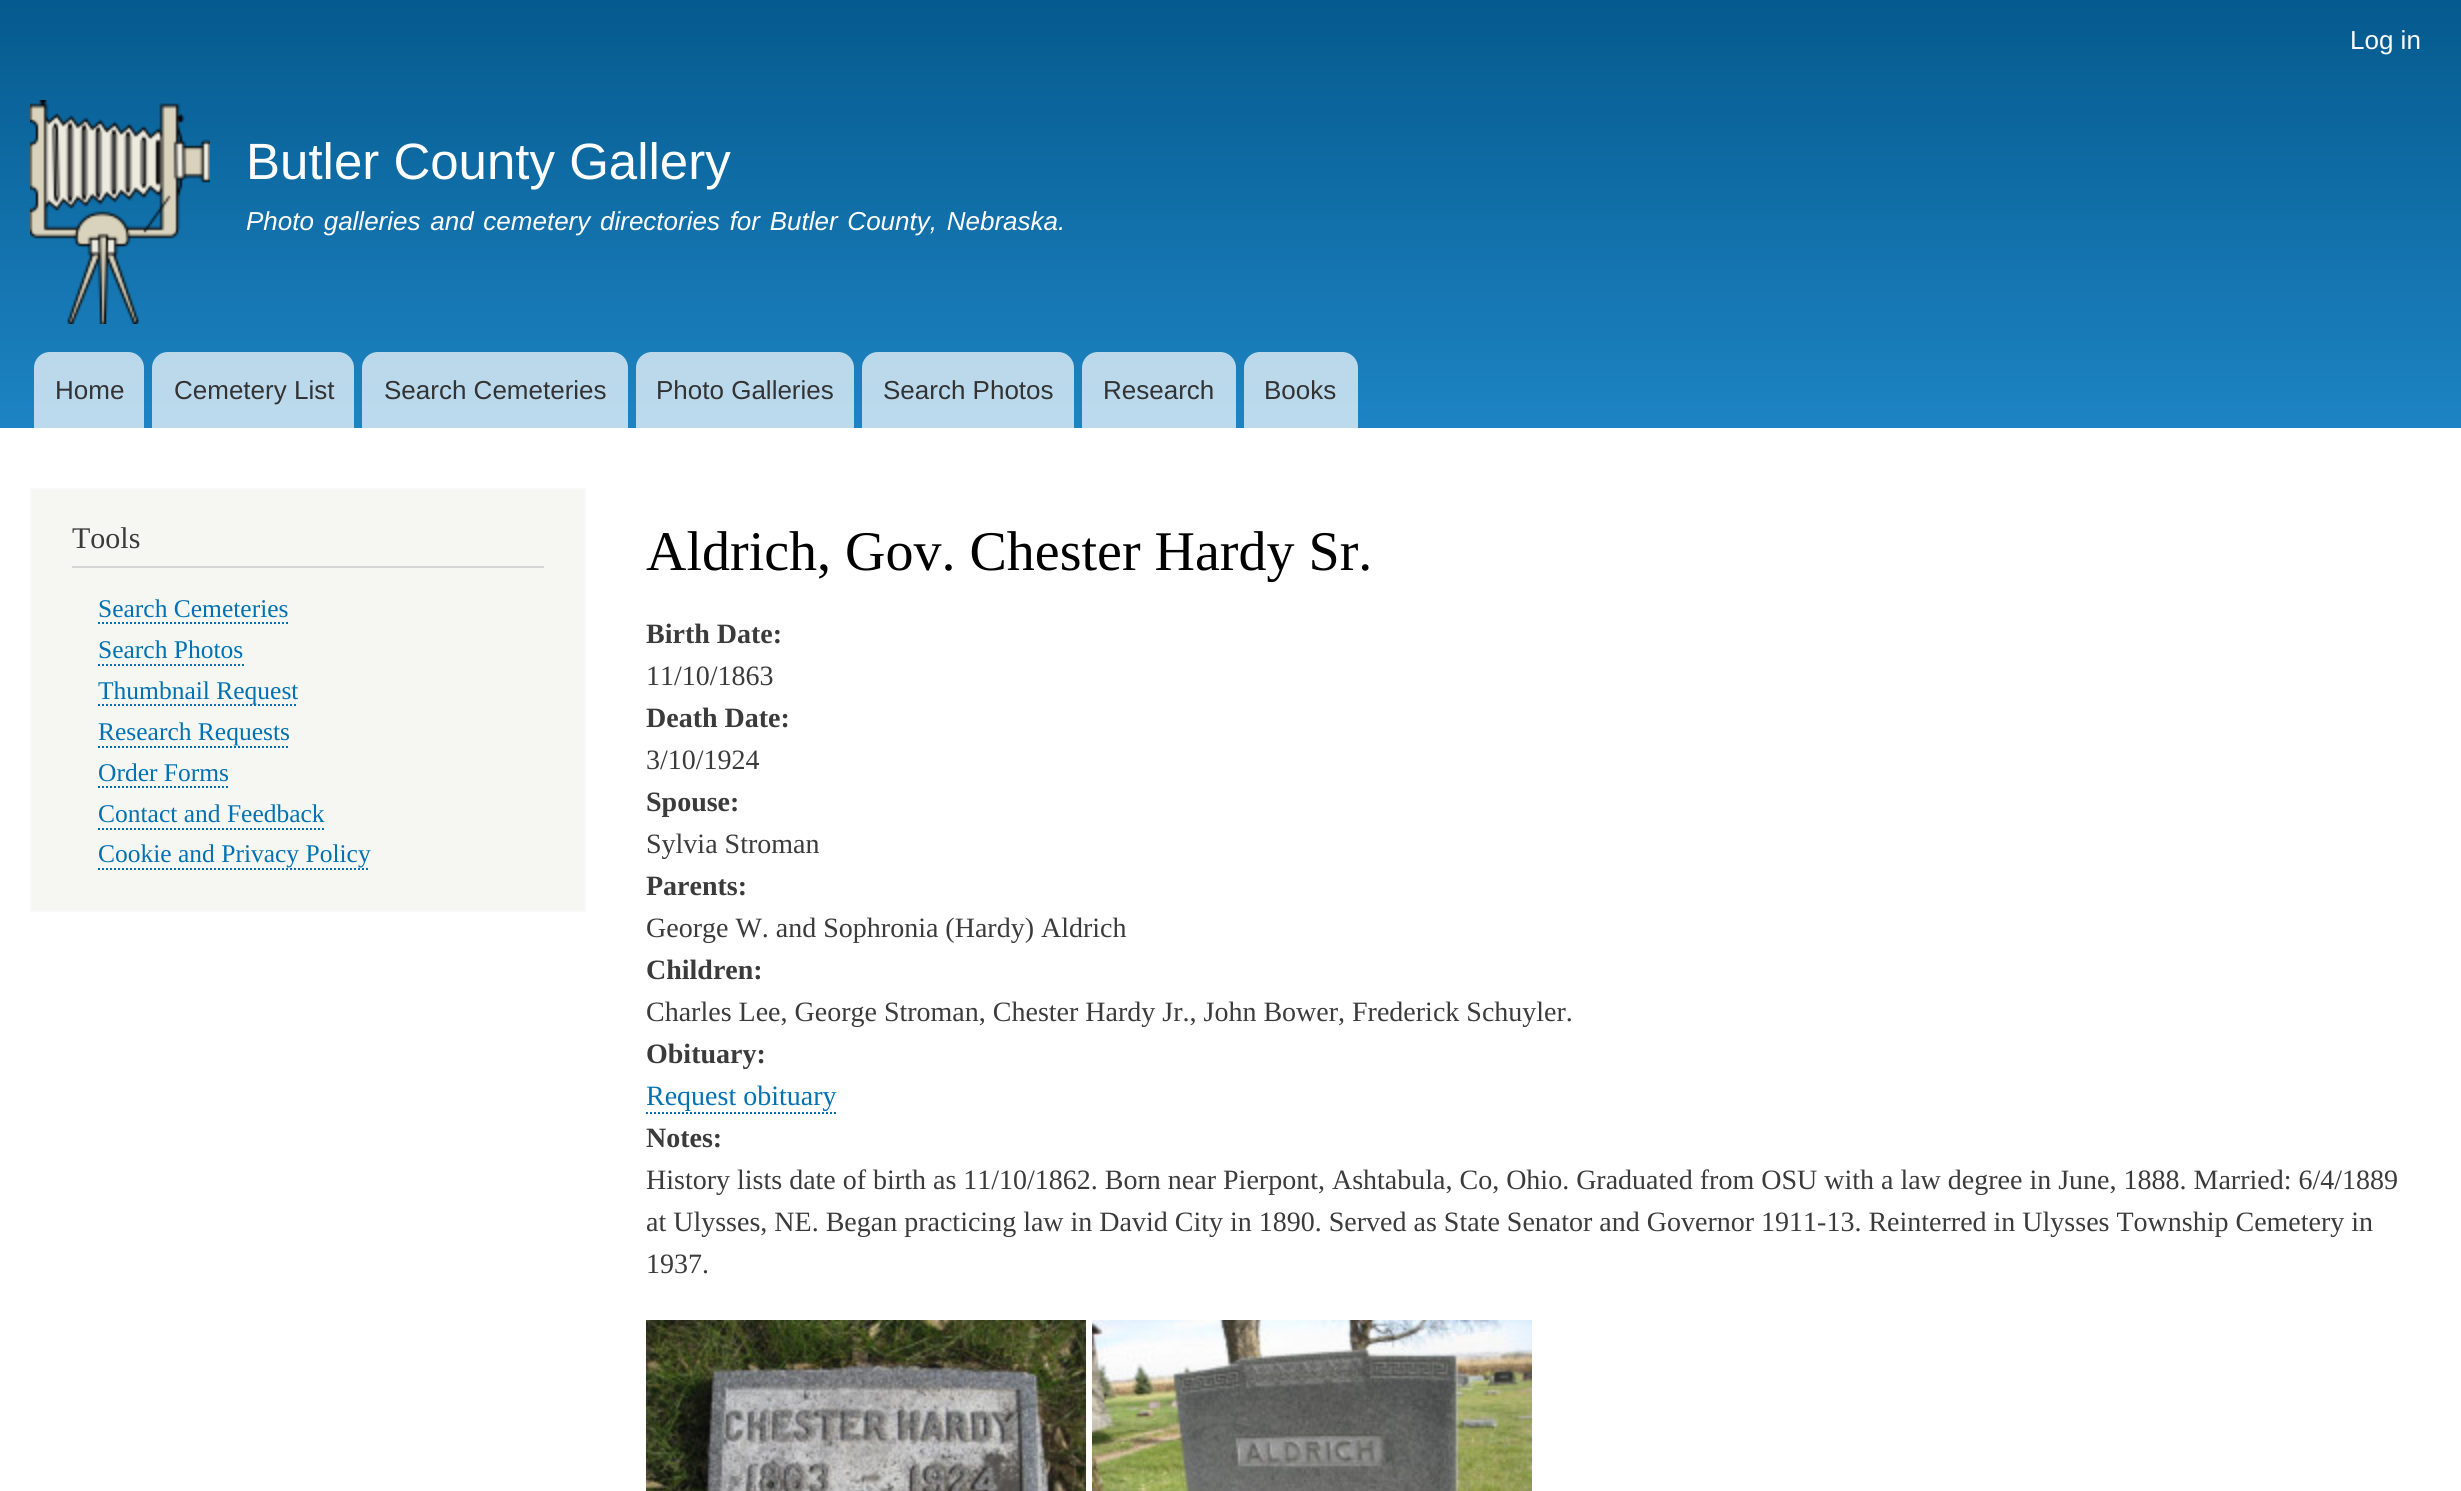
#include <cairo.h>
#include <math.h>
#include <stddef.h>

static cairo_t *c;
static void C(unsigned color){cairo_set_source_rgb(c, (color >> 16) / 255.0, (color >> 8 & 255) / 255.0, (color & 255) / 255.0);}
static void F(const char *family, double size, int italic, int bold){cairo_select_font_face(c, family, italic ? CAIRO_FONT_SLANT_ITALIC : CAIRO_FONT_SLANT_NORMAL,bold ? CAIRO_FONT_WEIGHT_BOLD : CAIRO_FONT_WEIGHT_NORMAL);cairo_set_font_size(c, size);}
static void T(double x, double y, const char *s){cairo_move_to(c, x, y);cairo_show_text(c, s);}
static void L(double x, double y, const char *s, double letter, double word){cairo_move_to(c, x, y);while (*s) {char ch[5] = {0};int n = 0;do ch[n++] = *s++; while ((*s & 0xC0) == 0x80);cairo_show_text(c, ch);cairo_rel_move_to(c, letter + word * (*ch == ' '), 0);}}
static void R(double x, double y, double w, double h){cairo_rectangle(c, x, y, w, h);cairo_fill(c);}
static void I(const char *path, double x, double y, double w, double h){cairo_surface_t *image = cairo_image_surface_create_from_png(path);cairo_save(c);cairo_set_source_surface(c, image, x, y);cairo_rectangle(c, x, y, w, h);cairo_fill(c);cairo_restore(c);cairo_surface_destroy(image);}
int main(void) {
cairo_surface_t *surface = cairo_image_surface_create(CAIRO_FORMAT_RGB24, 2461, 1491);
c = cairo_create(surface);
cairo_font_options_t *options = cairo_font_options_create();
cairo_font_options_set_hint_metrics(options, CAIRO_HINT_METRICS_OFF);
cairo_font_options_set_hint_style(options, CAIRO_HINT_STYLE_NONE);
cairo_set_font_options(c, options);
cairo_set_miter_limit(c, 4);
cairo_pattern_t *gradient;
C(0xffffff);
cairo_paint(c);
gradient = cairo_pattern_create_linear(1231,0,1231,428);
cairo_pattern_add_color_stop_rgba(gradient,0,0.02,0.353,0.557,1);
cairo_pattern_add_color_stop_rgba(gradient,1,0.114,0.518,0.765,1);
cairo_set_source(c,gradient);
cairo_pattern_destroy(gradient);
R(0,0,2461,428);
F("Liberation Sans",26,0,0);
C(0xfffeff);
T(2350,49,"Log in");
I("1.png",30,100,180,224);
F("Liberation Sans",51,0,0);
T(246,179,"Butler County Gallery");
F("Liberation Sans",26,1,0);
L(246,230,"Photo galleries and cemetery directories for Butler County, Nebraska.",0,2.5);
cairo_set_source_rgba(c,1,1,1,0.7);
cairo_new_path(c);
cairo_move_to(c,50,352);
cairo_line_to(c,128,352);
cairo_curve_to(c,137,352,144,359,144,368);
cairo_line_to(c,144,428);
cairo_line_to(c,34,428);
cairo_line_to(c,34,368);
cairo_curve_to(c,34,359,41,352,50,352);
cairo_close_path(c);
cairo_fill(c);
F("Liberation Sans",26,0,0);
C(0x333333);
T(55,399,"Home");
cairo_set_source_rgba(c,1,1,1,0.7);
cairo_new_path(c);
cairo_move_to(c,168,352);
cairo_line_to(c,338,352);
cairo_curve_to(c,347,352,354,359,354,368);
cairo_line_to(c,354,428);
cairo_line_to(c,152,428);
cairo_line_to(c,152,368);
cairo_curve_to(c,152,359,159,352,168,352);
cairo_close_path(c);
cairo_fill(c);
C(0x333333);
T(174,399,"Cemetery List");
cairo_set_source_rgba(c,1,1,1,0.7);
cairo_new_path(c);
cairo_move_to(c,378,352);
cairo_line_to(c,612,352);
cairo_curve_to(c,621,352,628,359,628,368);
cairo_line_to(c,628,428);
cairo_line_to(c,362,428);
cairo_line_to(c,362,368);
cairo_curve_to(c,362,359,369,352,378,352);
cairo_close_path(c);
cairo_fill(c);
C(0x333333);
T(384,399,"Search Cemeteries");
cairo_set_source_rgba(c,1,1,1,0.7);
cairo_new_path(c);
cairo_move_to(c,652,352);
cairo_line_to(c,838,352);
cairo_curve_to(c,847,352,854,359,854,368);
cairo_line_to(c,854,428);
cairo_line_to(c,636,428);
cairo_line_to(c,636,368);
cairo_curve_to(c,636,359,643,352,652,352);
cairo_close_path(c);
cairo_fill(c);
C(0x333333);
T(656,399,"Photo Galleries");
cairo_set_source_rgba(c,1,1,1,0.7);
cairo_new_path(c);
cairo_move_to(c,878,352);
cairo_line_to(c,1058,352);
cairo_curve_to(c,1067,352,1074,359,1074,368);
cairo_line_to(c,1074,428);
cairo_line_to(c,862,428);
cairo_line_to(c,862,368);
cairo_curve_to(c,862,359,869,352,878,352);
cairo_close_path(c);
cairo_fill(c);
C(0x333333);
T(883,399,"Search Photos");
cairo_set_source_rgba(c,1,1,1,0.7);
cairo_new_path(c);
cairo_move_to(c,1098,352);
cairo_line_to(c,1220,352);
cairo_curve_to(c,1229,352,1236,359,1236,368);
cairo_line_to(c,1236,428);
cairo_line_to(c,1082,428);
cairo_line_to(c,1082,368);
cairo_curve_to(c,1082,359,1089,352,1098,352);
cairo_close_path(c);
cairo_fill(c);
C(0x333333);
T(1103,399,"Research");
cairo_set_source_rgba(c,1,1,1,0.7);
cairo_new_path(c);
cairo_move_to(c,1260,352);
cairo_line_to(c,1342,352);
cairo_curve_to(c,1351,352,1358,359,1358,368);
cairo_line_to(c,1358,428);
cairo_line_to(c,1244,428);
cairo_line_to(c,1244,368);
cairo_curve_to(c,1244,359,1251,352,1260,352);
cairo_close_path(c);
cairo_fill(c);
C(0x333333);
T(1264,399,"Books");
C(0xf6f6f2);
cairo_rectangle(c,31,489,554,422);
cairo_fill_preserve(c);
C(0xf9f9f9);
cairo_stroke(c);
C(0xd6d6d6);
R(72,566,472,2);
F("Liberation Serif",30,0,0);
C(0x3b3b3b);
T(72,548,"Tools");
F("Liberation Serif",25.5,0,0);
C(0x0071b3);
T(98,617,"Search Cemeteries");
cairo_new_path(c);
cairo_move_to(c,98,623);
cairo_line_to(c,288,623);
cairo_set_dash(c,(double[]){2,2},2,0);
cairo_stroke(c);
T(98,658,"Search Photos");
cairo_new_path(c);
cairo_move_to(c,98,665);
cairo_line_to(c,244,665);
cairo_stroke(c);
cairo_new_path(c);
cairo_move_to(c,98,705);
cairo_line_to(c,298,705);
cairo_stroke(c);
T(98,699,"Thumbnail Request");
T(98,740,"Research Requests");
cairo_new_path(c);
cairo_move_to(c,98,747);
cairo_line_to(c,290,747);
cairo_stroke(c);
T(98,781,"Order Forms");
cairo_new_path(c);
cairo_move_to(c,98,787);
cairo_line_to(c,228,787);
cairo_stroke(c);
T(98,822,"Contact and Feedback");
cairo_new_path(c);
cairo_move_to(c,98,829);
cairo_line_to(c,324,829);
cairo_stroke(c);
T(98,862,"Cookie and Privacy Policy");
cairo_new_path(c);
cairo_move_to(c,98,869);
cairo_line_to(c,370,869);
cairo_stroke(c);
F("Liberation Serif",56,0,0);
C(0x000000);
T(646,570,"Aldrich, Gov. Chester Hardy Sr.");
F("Liberation Serif",28,0,1);
C(0x3b3b3b);
T(646,643,"Birth Date:");
F("Liberation Serif",28,0,0);
T(646,685,"11/10/1863");
F("Liberation Serif",28,0,1);
T(646,727,"Death Date:");
F("Liberation Serif",28,0,0);
T(646,769,"3/10/1924");
F("Liberation Serif",28,0,1);
T(646,811,"Spouse:");
F("Liberation Serif",28,0,0);
T(646,853,"Sylvia Stroman");
F("Liberation Serif",28,0,1);
T(646,895,"Parents:");
F("Liberation Serif",28,0,0);
T(646,937,"George W. and Sophronia (Hardy) Aldrich");
F("Liberation Serif",28,0,1);
T(646,979,"Children:");
F("Liberation Serif",28,0,0);
T(646,1021,"Charles Lee, George Stroman, Chester Hardy Jr., John Bower, Frederick Schuyler.");
F("Liberation Serif",28,0,1);
T(646,1063,"Obituary:");
F("Liberation Serif",28,0,0);
C(0x0071b3);
T(646,1105,"Request obituary");
cairo_new_path(c);
cairo_move_to(c,646,1113);
cairo_line_to(c,836,1113);
cairo_stroke(c);
F("Liberation Serif",28,0,1);
C(0x3b3b3b);
T(646,1147,"Notes:");
F("Liberation Serif",28,0,0);
T(646,1189,"History lists date of birth as 11/10/1862. Born near Pierpont, Ashtabula, Co, Ohio. Graduated from OSU with a law degree in June, 1888. Married: 6/4/1889");
T(646,1231,"at Ulysses, NE. Began practicing law in David City in 1890. Served as State Senator and Governor 1911-13. Reinterred in Ulysses Township Cemetery in");
T(646,1273,"1937.");
I("2.png",646,1320,440,171);
I("3.png",1092,1320,440,171);
cairo_surface_write_to_png(surface, "o.png");
cairo_font_options_destroy(options);
cairo_destroy(c);
cairo_surface_destroy(surface);
return 0;
}
